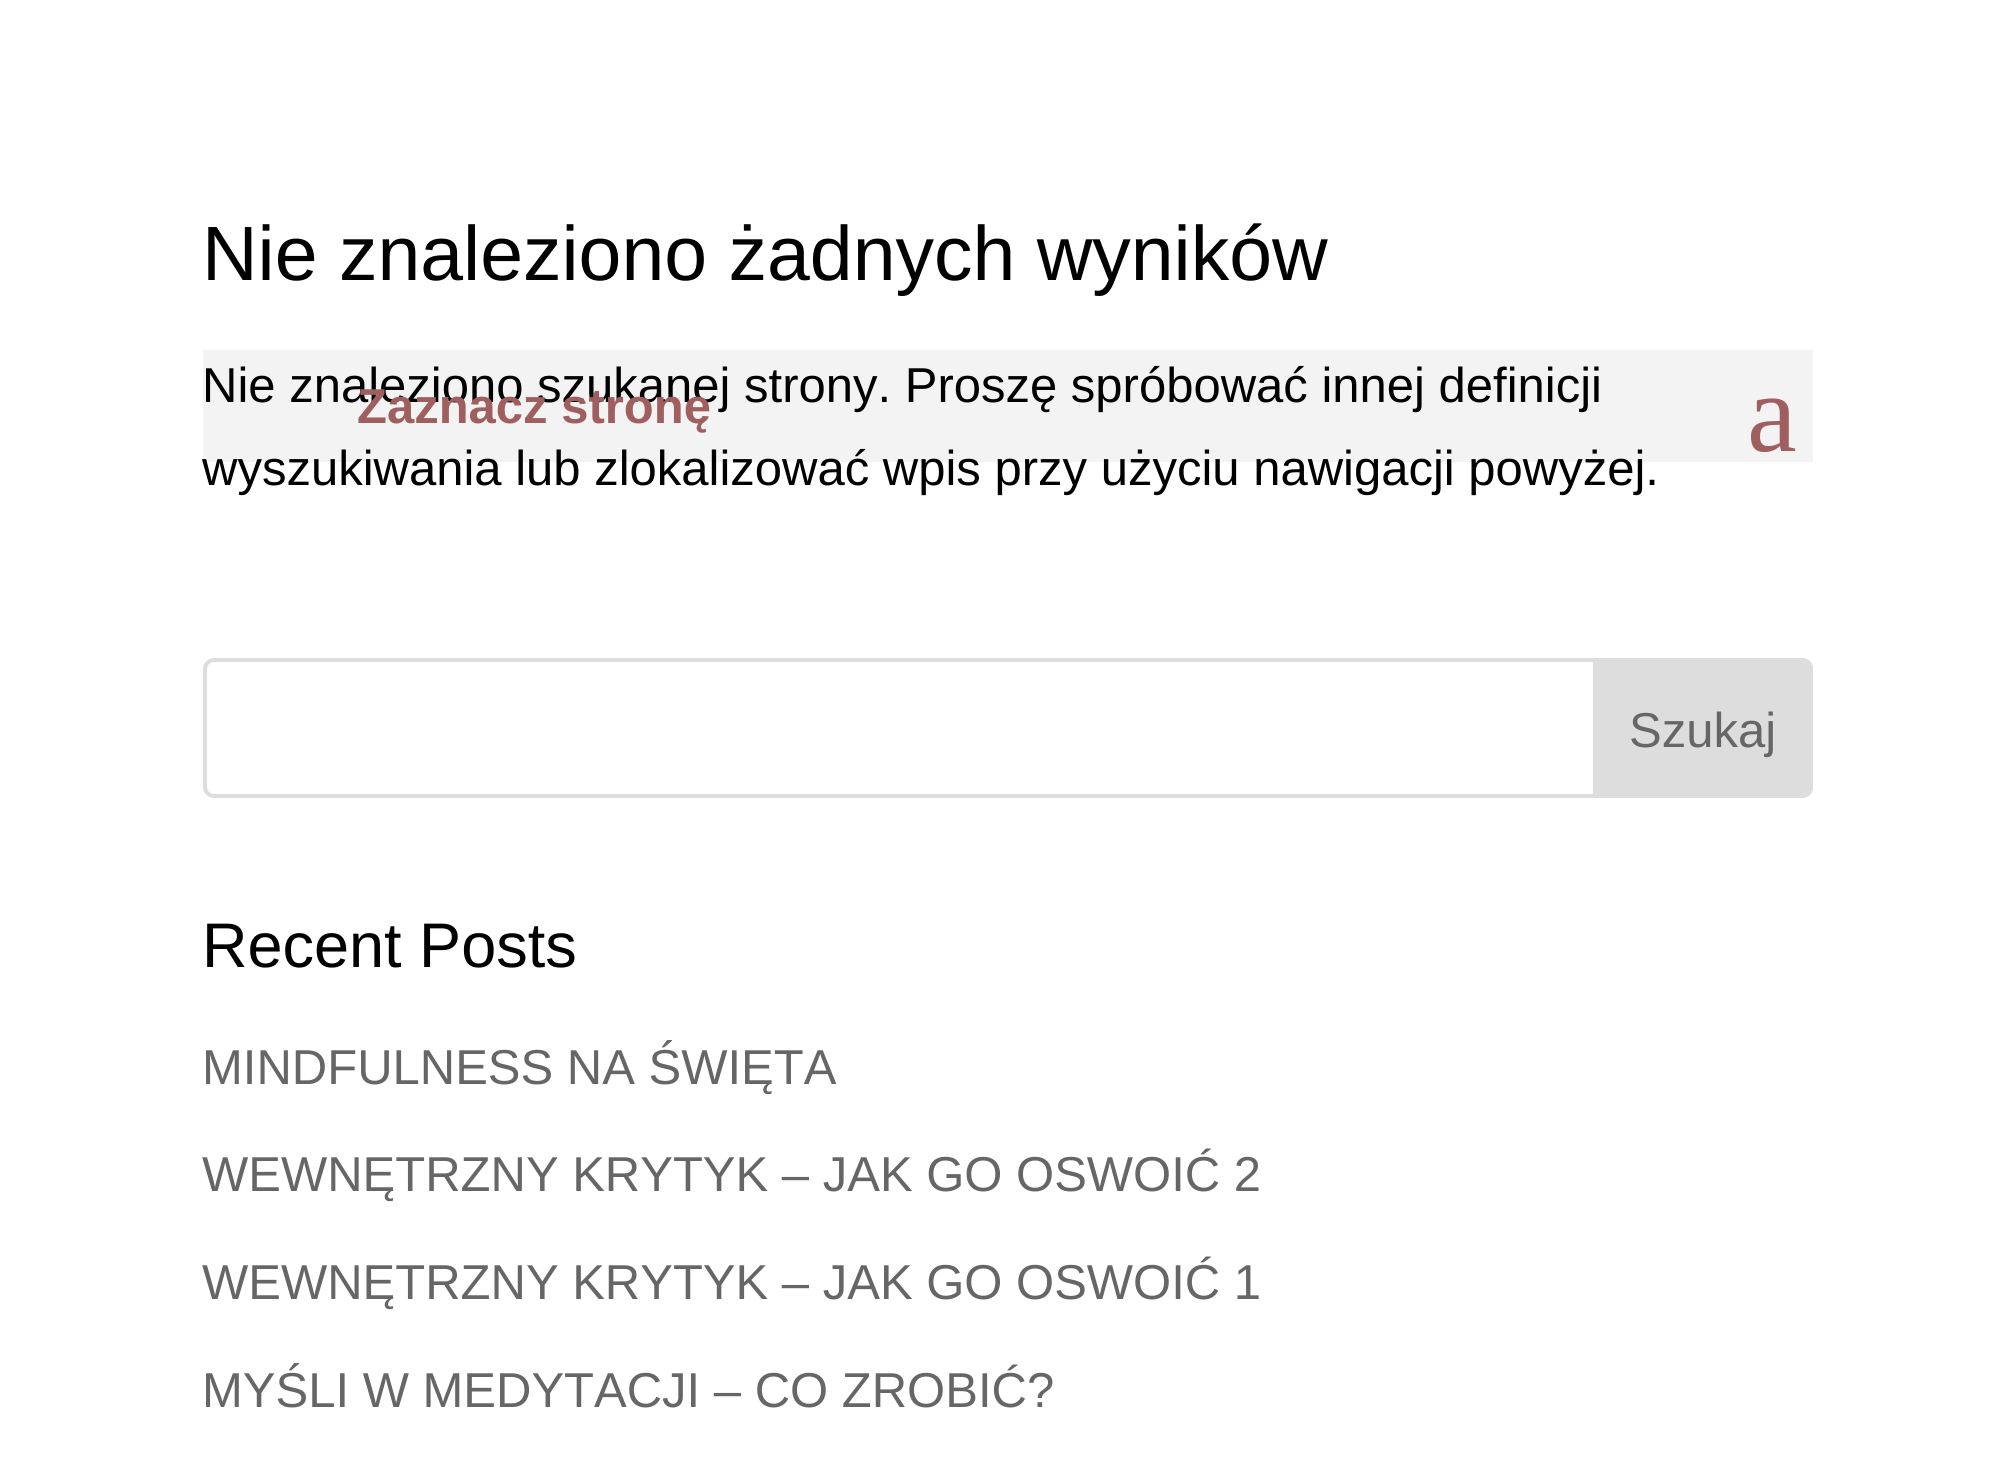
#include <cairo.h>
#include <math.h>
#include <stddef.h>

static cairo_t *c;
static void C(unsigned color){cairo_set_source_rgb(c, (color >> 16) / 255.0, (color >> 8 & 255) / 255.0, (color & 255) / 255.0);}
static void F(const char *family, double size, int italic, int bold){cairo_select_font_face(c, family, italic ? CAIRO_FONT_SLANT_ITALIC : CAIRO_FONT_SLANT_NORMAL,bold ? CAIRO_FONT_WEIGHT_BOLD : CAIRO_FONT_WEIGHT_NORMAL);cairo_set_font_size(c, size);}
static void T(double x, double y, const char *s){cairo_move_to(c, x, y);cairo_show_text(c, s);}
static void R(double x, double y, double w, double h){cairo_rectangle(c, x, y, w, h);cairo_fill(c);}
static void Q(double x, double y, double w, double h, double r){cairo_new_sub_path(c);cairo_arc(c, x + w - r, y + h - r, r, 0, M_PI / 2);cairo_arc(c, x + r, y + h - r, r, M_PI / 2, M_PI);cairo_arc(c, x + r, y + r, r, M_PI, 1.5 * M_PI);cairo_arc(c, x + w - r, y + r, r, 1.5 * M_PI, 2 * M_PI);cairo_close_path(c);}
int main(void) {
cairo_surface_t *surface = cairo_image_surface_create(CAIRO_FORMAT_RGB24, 2016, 1471);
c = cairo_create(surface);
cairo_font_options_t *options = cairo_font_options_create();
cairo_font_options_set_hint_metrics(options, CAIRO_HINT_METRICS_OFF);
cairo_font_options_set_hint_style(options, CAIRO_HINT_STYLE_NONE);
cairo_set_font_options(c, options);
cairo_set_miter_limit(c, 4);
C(0xffffff);
cairo_paint(c);
F("Liberation Sans",77,0,0);
C(0x000000);
T(202,280,"Nie znaleziono żadnych wyników");
F("Liberation Sans",49,0,0);
T(202,402,"Nie znaleziono szukanej strony. Proszę spróbować innej definicji");
T(202,485,"wyszukiwania lub zlokalizować wpis przy użyciu nawigacji powyżej.");
Q(205,660,1606,136,9);
C(0xdddddd);
cairo_set_line_width(c,4);
cairo_stroke(c);
cairo_new_path(c);
cairo_move_to(c,1595,660);
cairo_line_to(c,1802,660);
cairo_curve_to(c,1807,660,1811,664,1811,669);
cairo_line_to(c,1811,787);
cairo_curve_to(c,1811,792,1807,796,1802,796);
cairo_line_to(c,1595,796);
cairo_close_path(c);
cairo_fill_preserve(c);
cairo_stroke(c);
C(0x666666);
T(1629,747,"Szukaj");
F("Liberation Sans",63,0,0);
C(0x000000);
T(202,967,"Recent Posts");
F("Liberation Sans",49,0,0);
C(0x666666);
T(202,1084,"MINDFULNESS NA ŚWIĘTA");
T(202,1191,"WEWNĘTRZNY KRYTYK – JAK GO OSWOIĆ 2");
T(202,1299,"WEWNĘTRZNY KRYTYK – JAK GO OSWOIĆ 1");
T(202,1407,"MYŚLI W MEDYTACJI – CO ZROBIĆ?");
cairo_set_source_rgba(c,0,0,0,0.05);
R(203,350,1610,112);
F("Liberation Sans",49,0,1);
C(0x9f5f5f);
T(357,423,"Zaznacz stronę");
F("Liberation Serif",112,0,0);
T(1747,451,"a");
cairo_surface_write_to_png(surface, "o.png");
cairo_font_options_destroy(options);
cairo_destroy(c);
cairo_surface_destroy(surface);
return 0;
}
